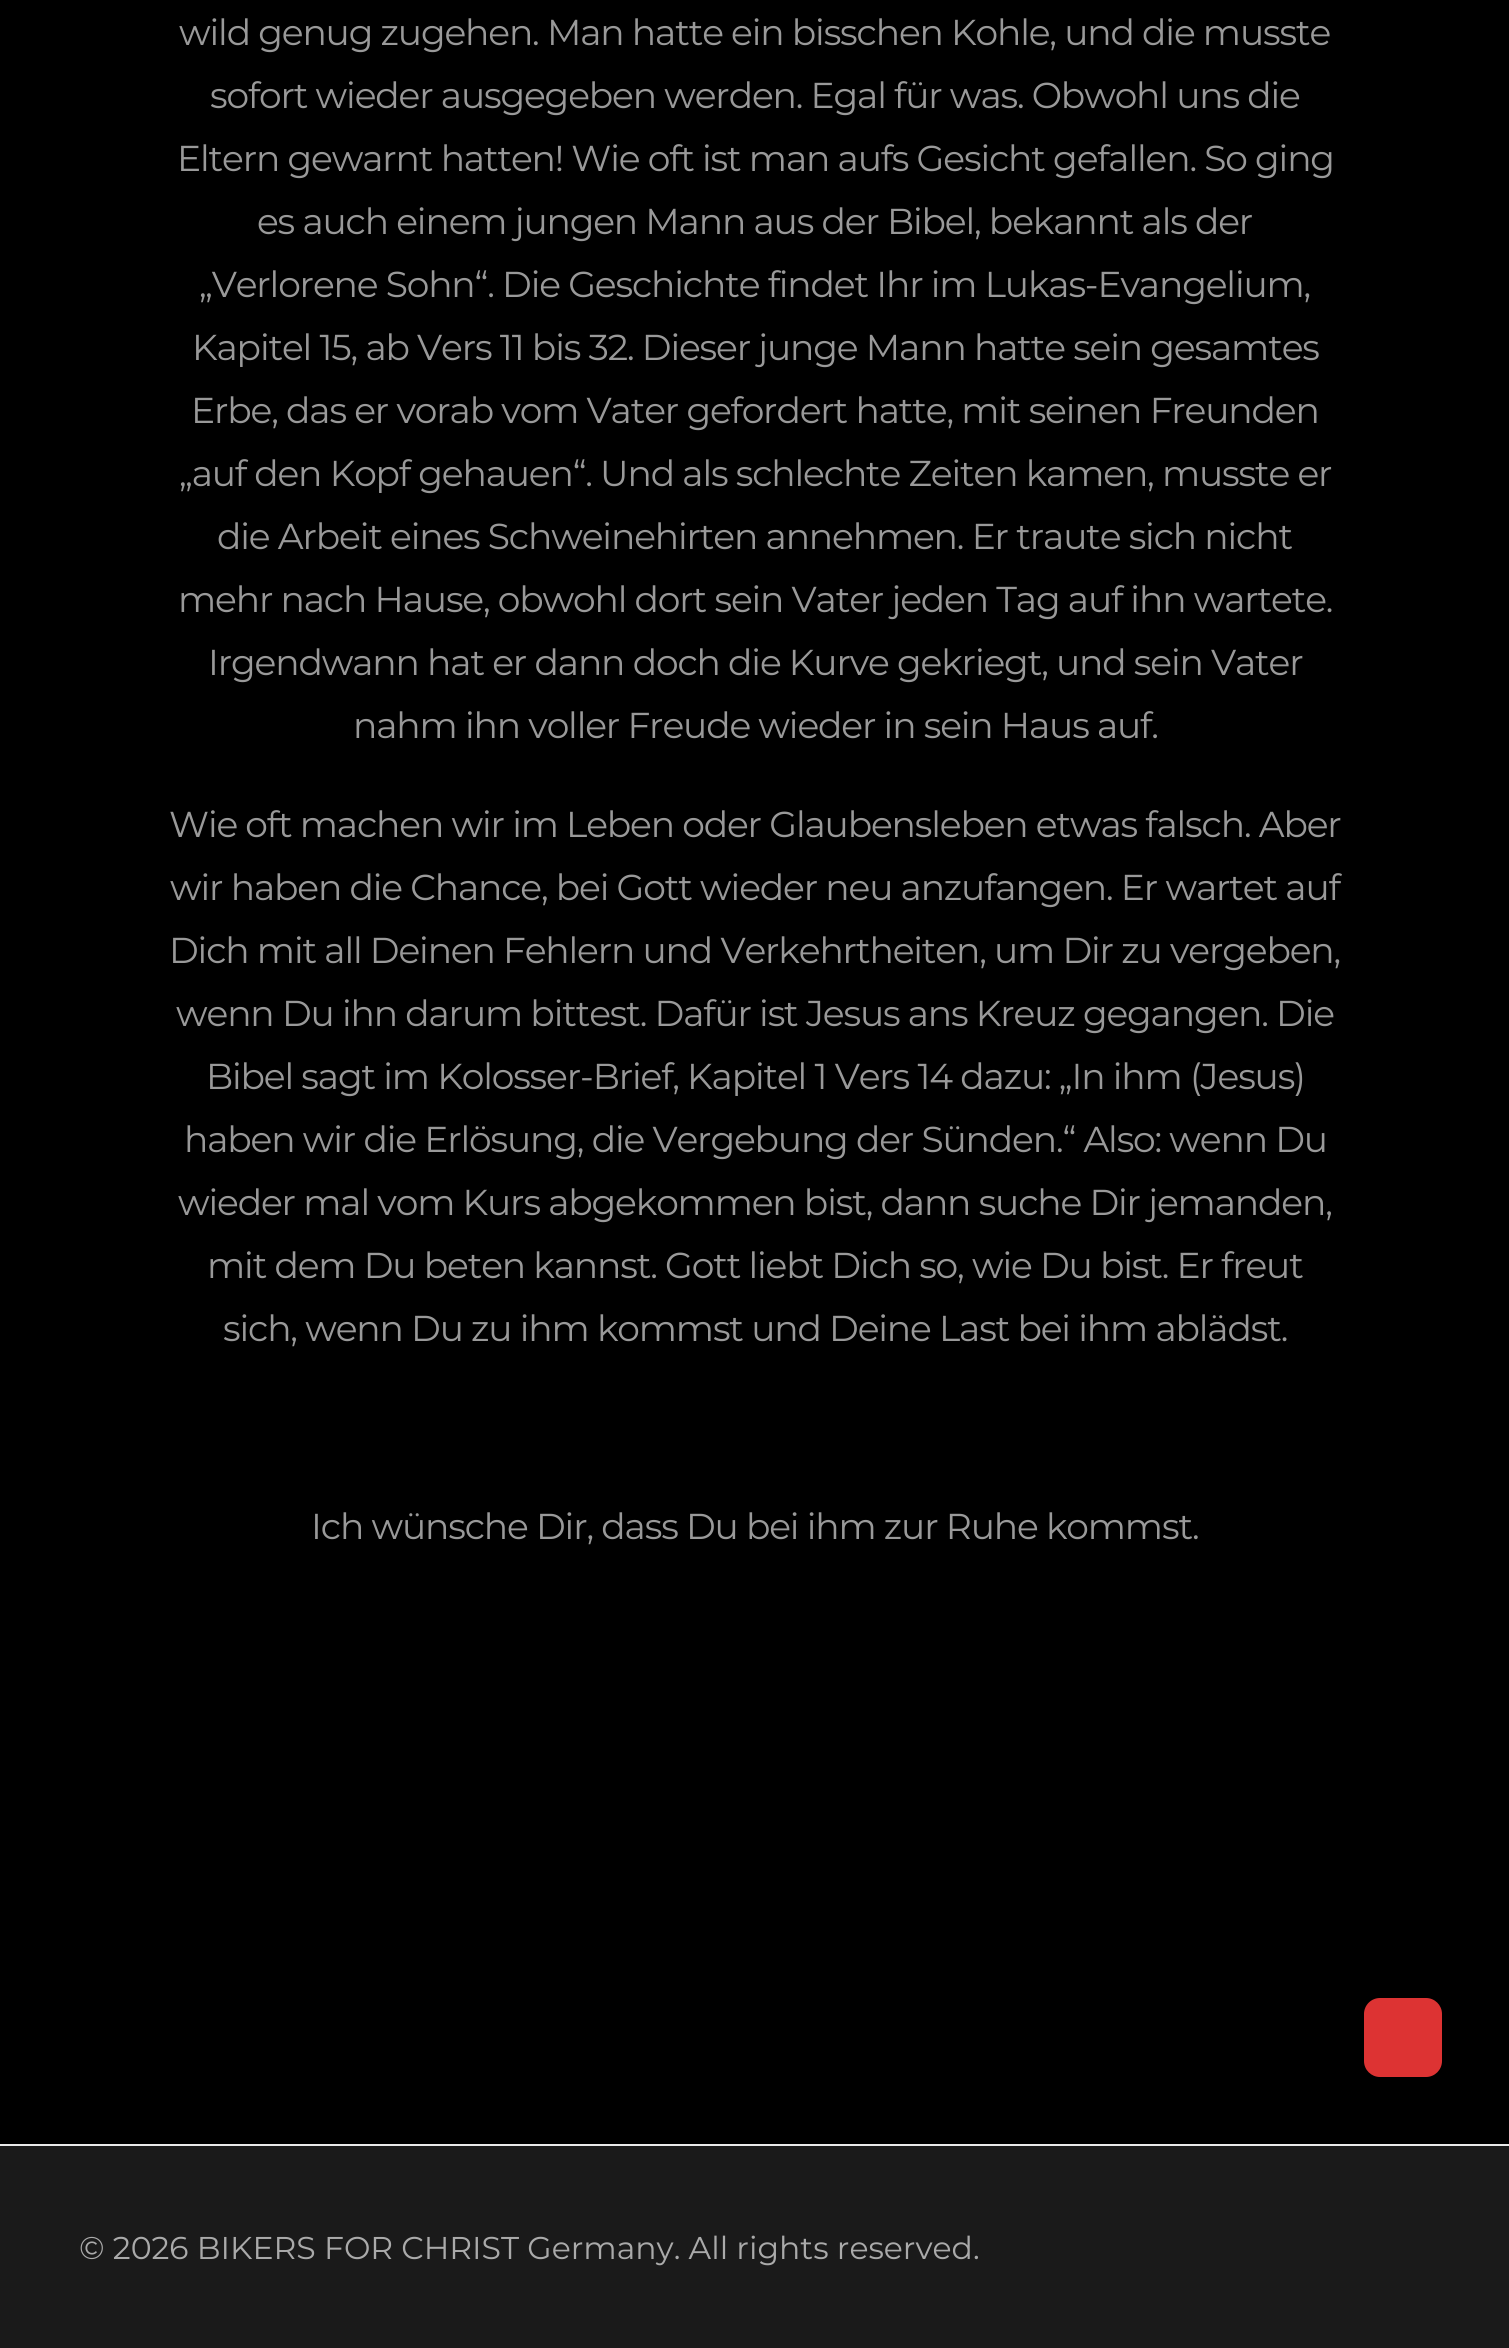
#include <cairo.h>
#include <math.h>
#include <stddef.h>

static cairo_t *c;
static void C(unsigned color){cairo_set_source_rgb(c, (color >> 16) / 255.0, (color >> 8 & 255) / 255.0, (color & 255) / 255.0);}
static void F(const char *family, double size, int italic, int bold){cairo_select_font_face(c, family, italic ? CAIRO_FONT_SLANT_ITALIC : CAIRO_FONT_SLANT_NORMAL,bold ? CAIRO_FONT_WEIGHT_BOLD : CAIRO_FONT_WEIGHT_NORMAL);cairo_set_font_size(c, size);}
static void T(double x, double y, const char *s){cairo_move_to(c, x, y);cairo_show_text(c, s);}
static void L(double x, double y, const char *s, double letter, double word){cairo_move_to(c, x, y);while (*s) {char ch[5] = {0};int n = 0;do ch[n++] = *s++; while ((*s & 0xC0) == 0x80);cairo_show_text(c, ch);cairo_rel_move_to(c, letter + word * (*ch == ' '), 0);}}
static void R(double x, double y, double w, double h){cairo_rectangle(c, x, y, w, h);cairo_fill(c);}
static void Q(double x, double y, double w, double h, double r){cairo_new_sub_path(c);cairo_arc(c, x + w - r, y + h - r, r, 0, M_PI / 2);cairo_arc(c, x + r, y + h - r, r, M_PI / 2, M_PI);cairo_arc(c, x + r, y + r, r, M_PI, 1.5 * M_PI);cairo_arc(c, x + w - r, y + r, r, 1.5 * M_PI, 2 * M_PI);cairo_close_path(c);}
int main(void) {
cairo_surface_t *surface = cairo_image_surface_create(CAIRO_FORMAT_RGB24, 1509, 2348);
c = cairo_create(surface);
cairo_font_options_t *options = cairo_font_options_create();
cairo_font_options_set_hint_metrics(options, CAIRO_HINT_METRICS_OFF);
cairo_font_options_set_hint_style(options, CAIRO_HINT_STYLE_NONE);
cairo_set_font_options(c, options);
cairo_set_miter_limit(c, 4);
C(0x000000);
cairo_paint(c);
F("Montserrat",36,0,0);
C(0x999999);
L(179,45,"wild genug zugehen. Man hatte ein bisschen Kohle, und die musste",-1.12,0);
L(210,108,"sofort wieder ausgegeben werden. Egal für was. Obwohl uns die",-1.12,0);
L(177,171,"Eltern gewarnt hatten! Wie oft ist man aufs Gesicht gefallen. So ging",-1.12,0);
L(257,234,"es auch einem jungen Mann aus der Bibel, bekannt als der",-1.12,0);
L(199,297,"„Verlorene Sohn“. Die Geschichte findet Ihr im Lukas-Evangelium,",-1.12,0);
L(192,360,"Kapitel 15, ab Vers 11 bis 32. Dieser junge Mann hatte sein gesamtes",-1.12,0);
L(191,423,"Erbe, das er vorab vom Vater gefordert hatte, mit seinen Freunden",-1.12,0);
L(179,486,"„auf den Kopf gehauen“. Und als schlechte Zeiten kamen, musste er",-1.12,0);
L(217,549,"die Arbeit eines Schweinehirten annehmen. Er traute sich nicht",-1.12,0);
L(178,612,"mehr nach Hause, obwohl dort sein Vater jeden Tag auf ihn wartete.",-1.12,0);
L(208,675,"Irgendwann hat er dann doch die Kurve gekriegt, und sein Vater",-1.12,0);
L(353,738,"nahm ihn voller Freude wieder in sein Haus auf.",-1.12,0);
L(169,837,"Wie oft machen wir im Leben oder Glaubensleben etwas falsch. Aber",-1.12,0);
L(170,900,"wir haben die Chance, bei Gott wieder neu anzufangen. Er wartet auf",-1.12,0);
L(169,963,"Dich mit all Deinen Fehlern und Verkehrtheiten, um Dir zu vergeben,",-1.12,0);
L(176,1026,"wenn Du ihn darum bittest. Dafür ist Jesus ans Kreuz gegangen. Die",-1.12,0);
L(206,1089,"Bibel sagt im Kolosser-Brief, Kapitel 1 Vers 14 dazu: „In ihm (Jesus)",-1.12,0);
L(184,1152,"haben wir die Erlösung, die Vergebung der Sünden.“ Also: wenn Du",-1.12,0);
L(178,1215,"wieder mal vom Kurs abgekommen bist, dann suche Dir jemanden,",-1.12,0);
L(207,1278,"mit dem Du beten kannst. Gott liebt Dich so, wie Du bist. Er freut",-1.12,0);
L(223,1341,"sich, wenn Du zu ihm kommst und Deine Last bei ihm ablädst.",-1.12,0);
L(311,1539,"Ich wünsche Dir, dass Du bei ihm zur Ruhe kommst.",-1.12,0);
C(0x1a1a1a);
R(0,2146,1509,202);
C(0xeaeaea);
R(0,2144,1509,2);
F("Montserrat",31.5,0,0);
C(0xaaaaaa);
T(79,2259,"© 2026 BIKERS FOR CHRIST Germany. All rights reserved.");
C(0xdd3333);
Q(1364,1998,78,79,16);
cairo_fill(c);
cairo_surface_write_to_png(surface, "o.png");
cairo_font_options_destroy(options);
cairo_destroy(c);
cairo_surface_destroy(surface);
return 0;
}
